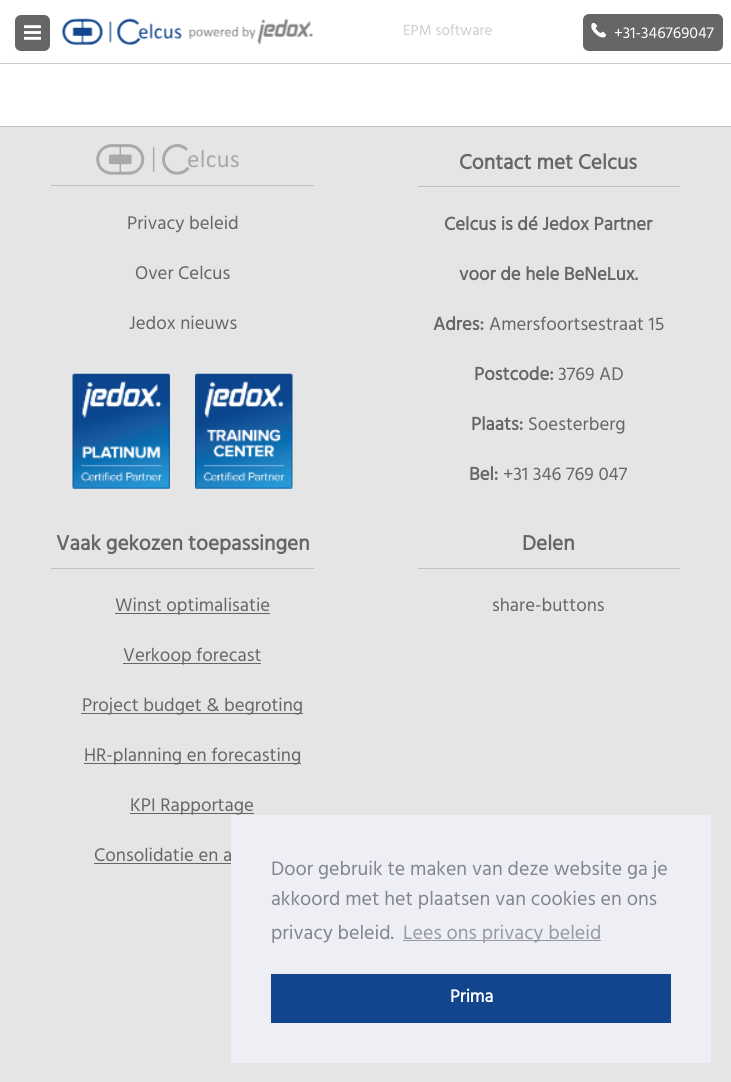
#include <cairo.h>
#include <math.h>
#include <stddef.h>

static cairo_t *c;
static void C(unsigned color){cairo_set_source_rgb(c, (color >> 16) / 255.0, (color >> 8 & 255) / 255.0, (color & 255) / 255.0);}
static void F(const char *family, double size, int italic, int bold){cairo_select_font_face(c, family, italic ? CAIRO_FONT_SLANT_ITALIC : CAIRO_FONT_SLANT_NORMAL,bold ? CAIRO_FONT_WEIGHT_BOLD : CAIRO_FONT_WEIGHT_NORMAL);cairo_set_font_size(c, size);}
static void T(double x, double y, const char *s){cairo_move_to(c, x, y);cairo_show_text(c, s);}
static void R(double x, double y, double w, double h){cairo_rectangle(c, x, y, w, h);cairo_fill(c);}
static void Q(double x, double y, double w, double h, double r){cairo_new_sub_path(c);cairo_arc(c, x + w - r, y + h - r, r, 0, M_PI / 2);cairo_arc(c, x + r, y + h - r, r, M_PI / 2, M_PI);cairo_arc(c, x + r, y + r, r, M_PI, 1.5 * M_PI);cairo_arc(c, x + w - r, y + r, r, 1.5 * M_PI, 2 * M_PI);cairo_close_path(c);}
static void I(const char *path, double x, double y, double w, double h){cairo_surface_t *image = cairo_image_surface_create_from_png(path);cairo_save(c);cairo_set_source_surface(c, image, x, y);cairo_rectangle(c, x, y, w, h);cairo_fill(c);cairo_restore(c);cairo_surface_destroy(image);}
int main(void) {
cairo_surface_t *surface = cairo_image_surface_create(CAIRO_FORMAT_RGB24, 731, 1082);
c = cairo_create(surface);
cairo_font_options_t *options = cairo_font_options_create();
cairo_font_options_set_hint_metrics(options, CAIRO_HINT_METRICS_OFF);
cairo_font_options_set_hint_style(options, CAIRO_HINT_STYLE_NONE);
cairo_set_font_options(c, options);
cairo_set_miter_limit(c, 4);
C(0xe5e5e5);
cairo_paint(c);
C(0xffffff);
R(0,0,731,63);
C(0xcccccc);
R(0,63,731,1);
C(0x666666);
Q(15,15,35,36,6);
cairo_fill(c);
I("1.png",24,25,17,15);
I("2.png",62,18,251,27);
F("Hind",15,0,0);
C(0xcccccc);
T(403,35,"EPM software");
C(0x666666);
Q(583,14,140,37,6);
cairo_fill(c);
I("3.png",591,23,15,15);
F("Hind",16,0,0);
C(0xffffff);
T(614,38,"+31-346769047");
R(0,64,731,62);
C(0xc0c0c0);
R(0,126,731,1);
R(51,185,263,1);
I("4.png",96,144,143,31);
F("Hind",18.75,0,0);
C(0x666666);
T(127,229,"Privacy beleid");
T(135,279,"Over Celcus");
T(129,329,"Jedox nieuws");
I("5.png",72,373,98,116);
I("6.png",195,373,98,116);
C(0xc0c0c0);
R(418,186,262,1);
F("Hind",21.25,0,1);
C(0x666666);
T(459,169,"Contact met Celcus");
F("Hind",18.75,0,1);
T(444,230,"Celcus is dé Jedox Partner");
T(459,280,"voor de hele BeNeLux.");
T(433,330,"Adres:");
F("Hind",18.75,0,0);
T(489,330,"Amersfoortsestraat 15");
F("Hind",18.75,0,1);
T(474,380,"Postcode:");
F("Hind",18.75,0,0);
T(558,380,"3769 AD");
F("Hind",18.75,0,1);
T(471,430,"Plaats:");
F("Hind",18.75,0,0);
T(528,430,"Soesterberg");
F("Hind",18.75,0,1);
T(469,480,"Bel:");
F("Hind",18.75,0,0);
T(503,480,"+31 346 769 047");
C(0xc0c0c0);
R(51,568,263,1);
F("Hind",21.25,0,1);
C(0x666666);
T(56,550,"Vaak gekozen toepassingen");
R(115,613,155,1);
F("Hind",18.75,0,0);
T(115,611,"Winst optimalisatie");
R(123,663,138,1);
T(123,661,"Verkoop forecast");
R(81,713,222,1);
T(82,711,"Project budget & begroting");
R(84,763,217,1);
T(84,761,"HR-planning en forecasting");
R(130,813,124,1);
T(130,811,"KPI Rapportage");
T(94,861,"Consolidatie en a");
R(94,863,137,1);
C(0xc0c0c0);
R(418,568,262,1);
F("Hind",21.25,0,1);
C(0x666666);
T(522,550,"Delen");
F("Hind",18.75,0,0);
T(492,611,"share-buttons");
C(0xedeff5);
R(231,815,480,248);
F("Hind",20,0,0);
C(0x838391);
T(271,875,"Door gebruik te maken van deze website ga je");
T(271,905,"akkoord met het plaatsen van cookies en ons");
T(271,939,"privacy beleid.");
C(0x9899a5);
R(403,940,198,1);
T(403,939,"Lees ons privacy beleid");
C(0x12458d);
R(271,974,400,49);
F("Hind",18,0,1);
C(0xffffff);
T(450,1002,"Prima");
cairo_surface_write_to_png(surface, "o.png");
cairo_font_options_destroy(options);
cairo_destroy(c);
cairo_surface_destroy(surface);
return 0;
}
